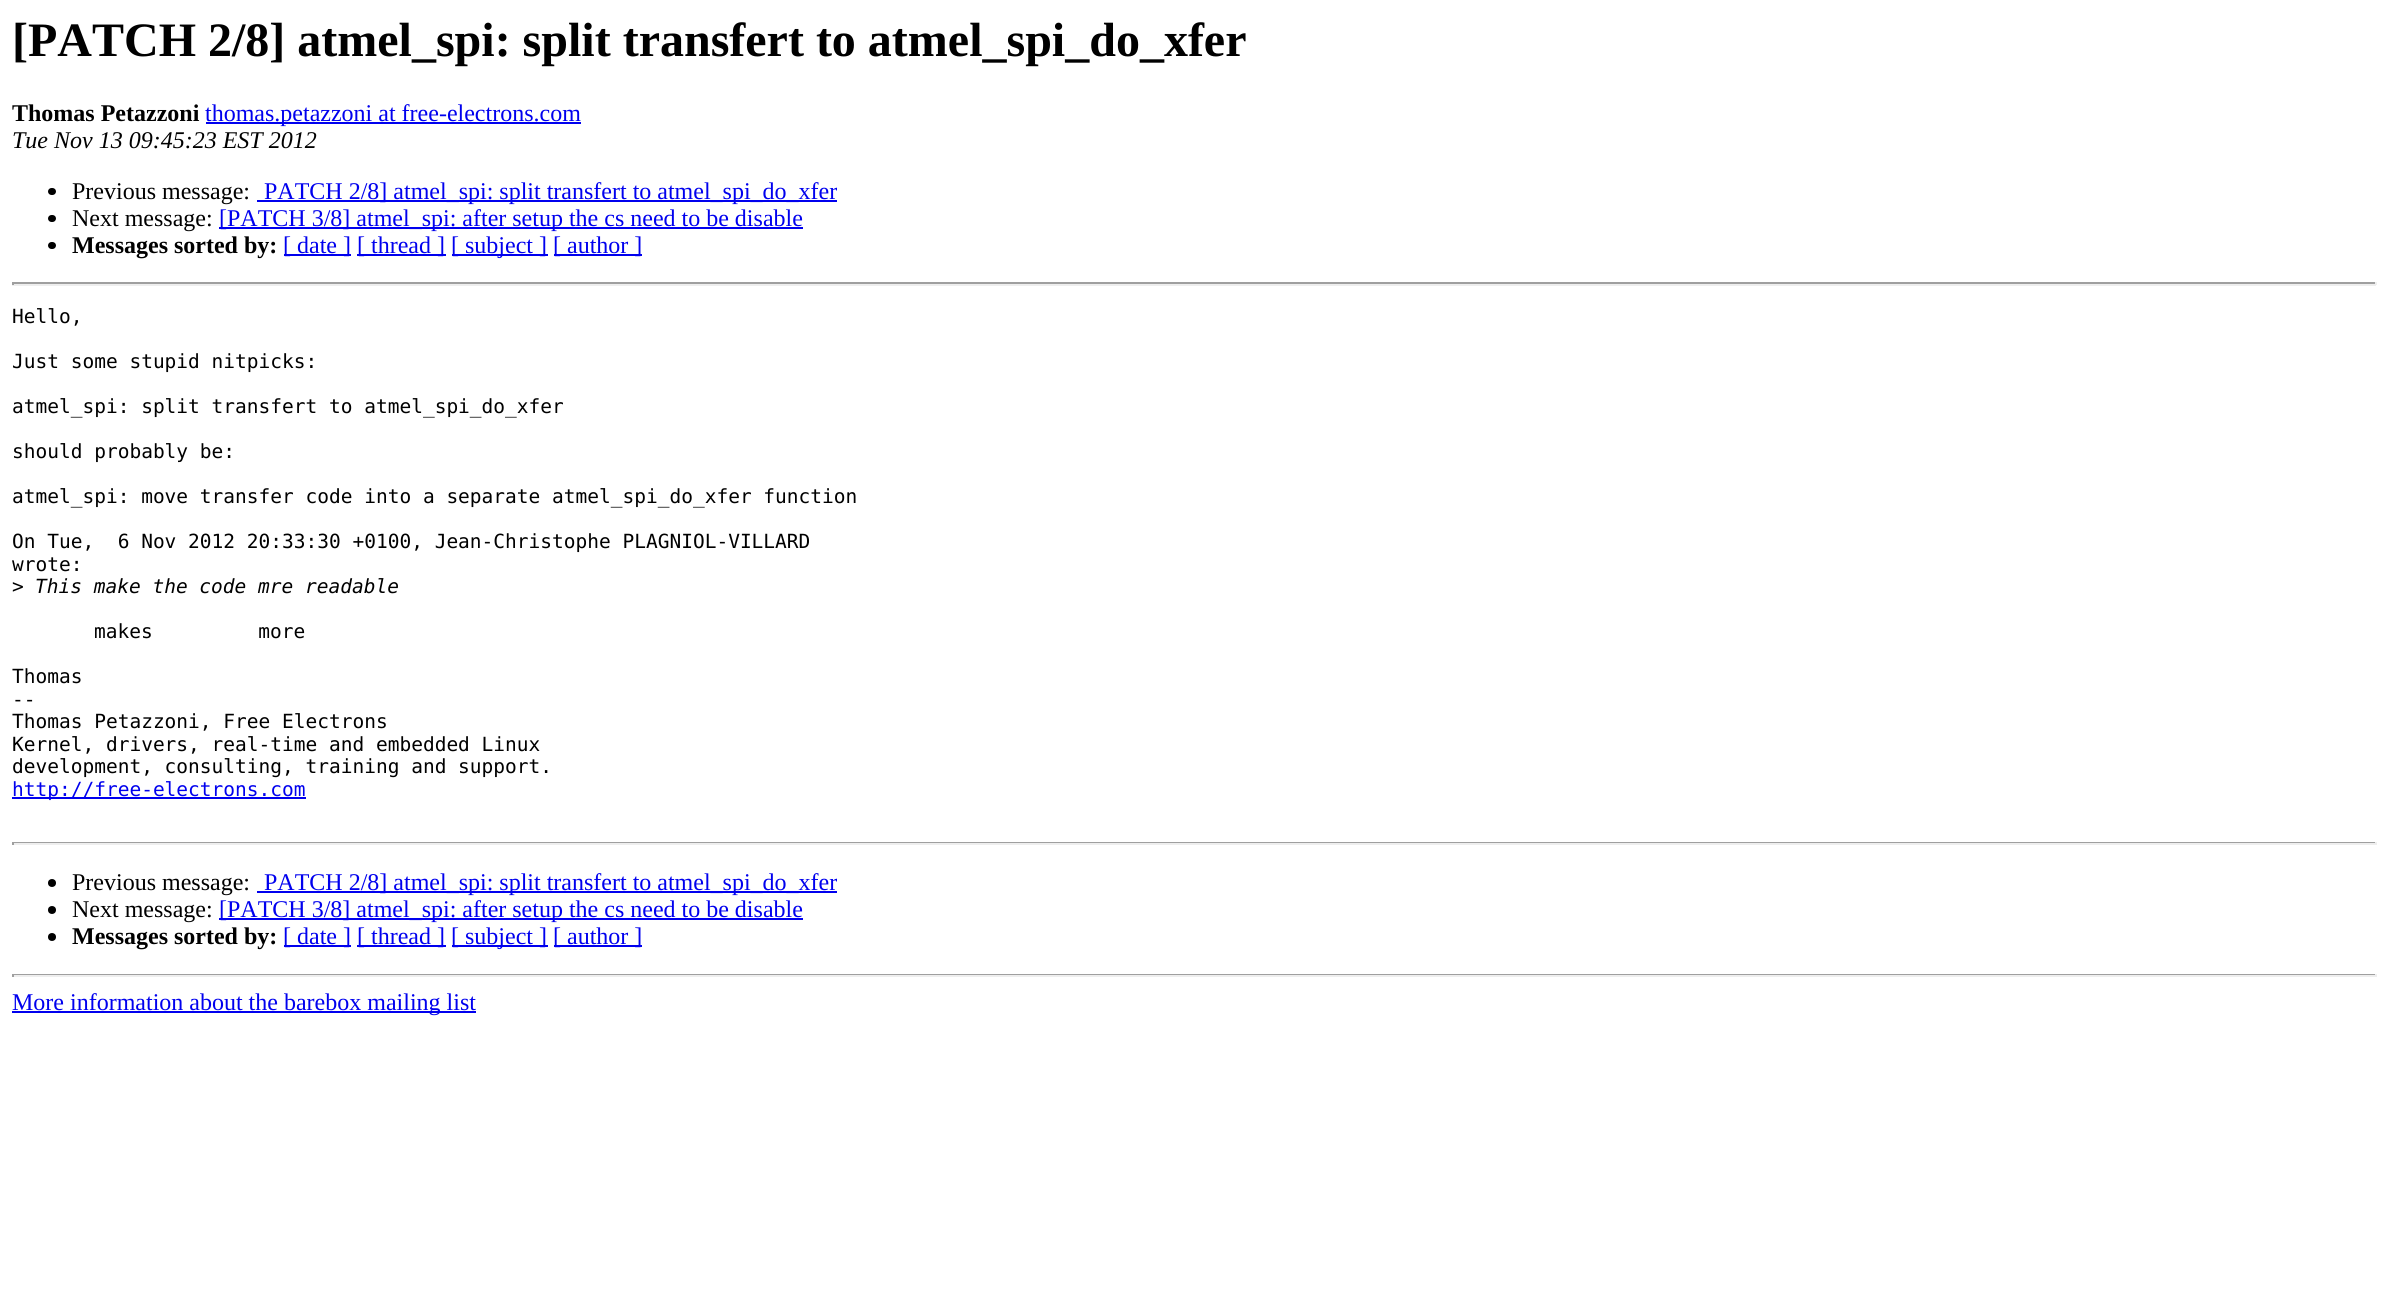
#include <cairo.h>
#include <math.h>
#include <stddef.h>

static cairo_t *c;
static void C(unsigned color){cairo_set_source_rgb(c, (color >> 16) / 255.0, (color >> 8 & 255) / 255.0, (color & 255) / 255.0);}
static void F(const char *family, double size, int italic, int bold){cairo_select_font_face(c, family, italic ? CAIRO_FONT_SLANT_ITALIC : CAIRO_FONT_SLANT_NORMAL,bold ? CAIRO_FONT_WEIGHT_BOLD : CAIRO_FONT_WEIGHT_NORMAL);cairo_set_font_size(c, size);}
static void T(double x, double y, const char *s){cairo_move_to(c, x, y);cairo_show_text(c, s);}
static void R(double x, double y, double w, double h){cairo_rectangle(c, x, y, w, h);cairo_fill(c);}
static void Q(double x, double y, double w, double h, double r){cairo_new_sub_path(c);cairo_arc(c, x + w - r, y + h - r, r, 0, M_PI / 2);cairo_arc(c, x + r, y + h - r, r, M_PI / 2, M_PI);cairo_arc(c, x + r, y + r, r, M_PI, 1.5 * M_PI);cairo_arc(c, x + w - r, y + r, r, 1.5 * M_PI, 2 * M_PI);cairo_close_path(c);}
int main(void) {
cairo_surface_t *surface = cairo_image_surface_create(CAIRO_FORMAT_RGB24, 2387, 1312);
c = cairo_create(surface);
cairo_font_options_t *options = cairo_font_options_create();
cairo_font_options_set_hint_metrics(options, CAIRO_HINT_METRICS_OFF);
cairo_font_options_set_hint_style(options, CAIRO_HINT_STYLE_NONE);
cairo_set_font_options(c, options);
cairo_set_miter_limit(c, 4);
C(0xffffff);
cairo_paint(c);
F("Liberation Serif",48,0,1);
C(0x000000);
T(12,56,"[PATCH 2/8] atmel_spi: split transfert to atmel_spi_do_xfer");
F("Liberation Serif",24,0,1);
T(12,121,"Thomas Petazzoni");
C(0x0000ee);
R(206,122,375,2);
F("Liberation Serif",24,0,0);
T(205,121,"thomas.petazzoni at free-electrons.com");
F("Liberation Serif",24,1,0);
C(0x000000);
T(12,148,"Tue Nov 13 09:45:23 EST 2012");
Q(48,188,8,7,3.5);
cairo_fill(c);
F("Liberation Serif",24,0,0);
T(72,199,"Previous message:");
C(0x0000ee);
R(257,200,580,2);
T(264,199,"PATCH 2/8] atmel_spi: split transfert to atmel_spi_do_xfer");
C(0x000000);
Q(48,215,8,7,3.5);
cairo_fill(c);
T(72,226,"Next message:");
C(0x0000ee);
R(219,227,584,2);
T(219,226,"[PATCH 3/8] atmel_spi: after setup the cs need to be disable");
C(0x000000);
Q(48,242,8,7,3.5);
cairo_fill(c);
F("Liberation Serif",24,0,1);
T(72,253,"Messages sorted by:");
C(0x0000ee);
R(284,254,67,2);
F("Liberation Serif",24,0,0);
T(283,253,"[ date ]");
R(357,254,89,2);
T(357,253,"[ thread ]");
R(452,254,96,2);
T(451,253,"[ subject ]");
R(554,254,88,2);
T(553,253,"[ author ]");
C(0x9f9f9f);
R(12,282,2364,2);
C(0xeeeeee);
R(2375,282,2,3);
R(12,284,2364,2);
C(0x9f9f9f);
R(12,282,2,3);
F("DejaVu Sans Mono",19.5,0,0);
C(0x000000);
T(12,323,"Hello,");
T(12,368,"Just some stupid nitpicks:");
T(12,413,"atmel_spi: split transfert to atmel_spi_do_xfer");
T(12,458,"should probably be:");
T(12,503,"atmel_spi: move transfer code into a separate atmel_spi_do_xfer function");
T(12,548,"On Tue,  6 Nov 2012 20:33:30 +0100, Jean-Christophe PLAGNIOL-VILLARD");
T(12,571,"wrote:");
T(12,593,">");
F("DejaVu Sans Mono",19.5,1,0);
T(35,593,"This make the code mre readable");
F("DejaVu Sans Mono",19.5,0,0);
T(94,638,"makes         more");
T(12,683,"Thomas");
T(12,706,"--");
T(12,728,"Thomas Petazzoni, Free Electrons");
T(12,751,"Kernel, drivers, real-time and embedded Linux");
T(12,773,"development, consulting, training and support.");
C(0x0000ee);
R(12,797,294,2);
T(12,796,"http://free-electrons.com");
C(0x9f9f9f);
R(12,842,2364,1);
C(0xeeeeee);
R(2375,842,2,3);
R(12,843,2364,2);
C(0x9f9f9f);
R(12,842,2,3);
C(0x000000);
cairo_new_path(c);
cairo_arc(c,52,883,4,0,2 * M_PI);
cairo_fill(c);
F("Liberation Serif",24,0,0);
T(72,890,"Previous message:");
C(0x0000ee);
R(257,891,580,2);
T(264,890,"PATCH 2/8] atmel_spi: split transfert to atmel_spi_do_xfer");
C(0x000000);
cairo_new_path(c);
cairo_arc(c,52,910,4,0,2 * M_PI);
cairo_fill(c);
T(72,917,"Next message:");
C(0x0000ee);
R(219,918,584,2);
T(219,917,"[PATCH 3/8] atmel_spi: after setup the cs need to be disable");
C(0x000000);
cairo_new_path(c);
cairo_arc(c,52,937,4,0,2 * M_PI);
cairo_fill(c);
F("Liberation Serif",24,0,1);
T(72,944,"Messages sorted by:");
C(0x0000ee);
R(284,945,67,2);
F("Liberation Serif",24,0,0);
T(283,944,"[ date ]");
R(357,945,89,2);
T(357,944,"[ thread ]");
R(452,945,96,2);
T(451,944,"[ subject ]");
R(554,945,88,2);
T(553,944,"[ author ]");
C(0x9f9f9f);
R(12,974,2364,1);
C(0xeeeeee);
R(2375,974,2,3);
R(12,975,2364,2);
C(0x9f9f9f);
R(12,974,2,3);
C(0x0000ee);
R(12,1011,464,2);
T(12,1010,"More information about the barebox mailing list");
cairo_surface_write_to_png(surface, "o.png");
cairo_font_options_destroy(options);
cairo_destroy(c);
cairo_surface_destroy(surface);
return 0;
}
